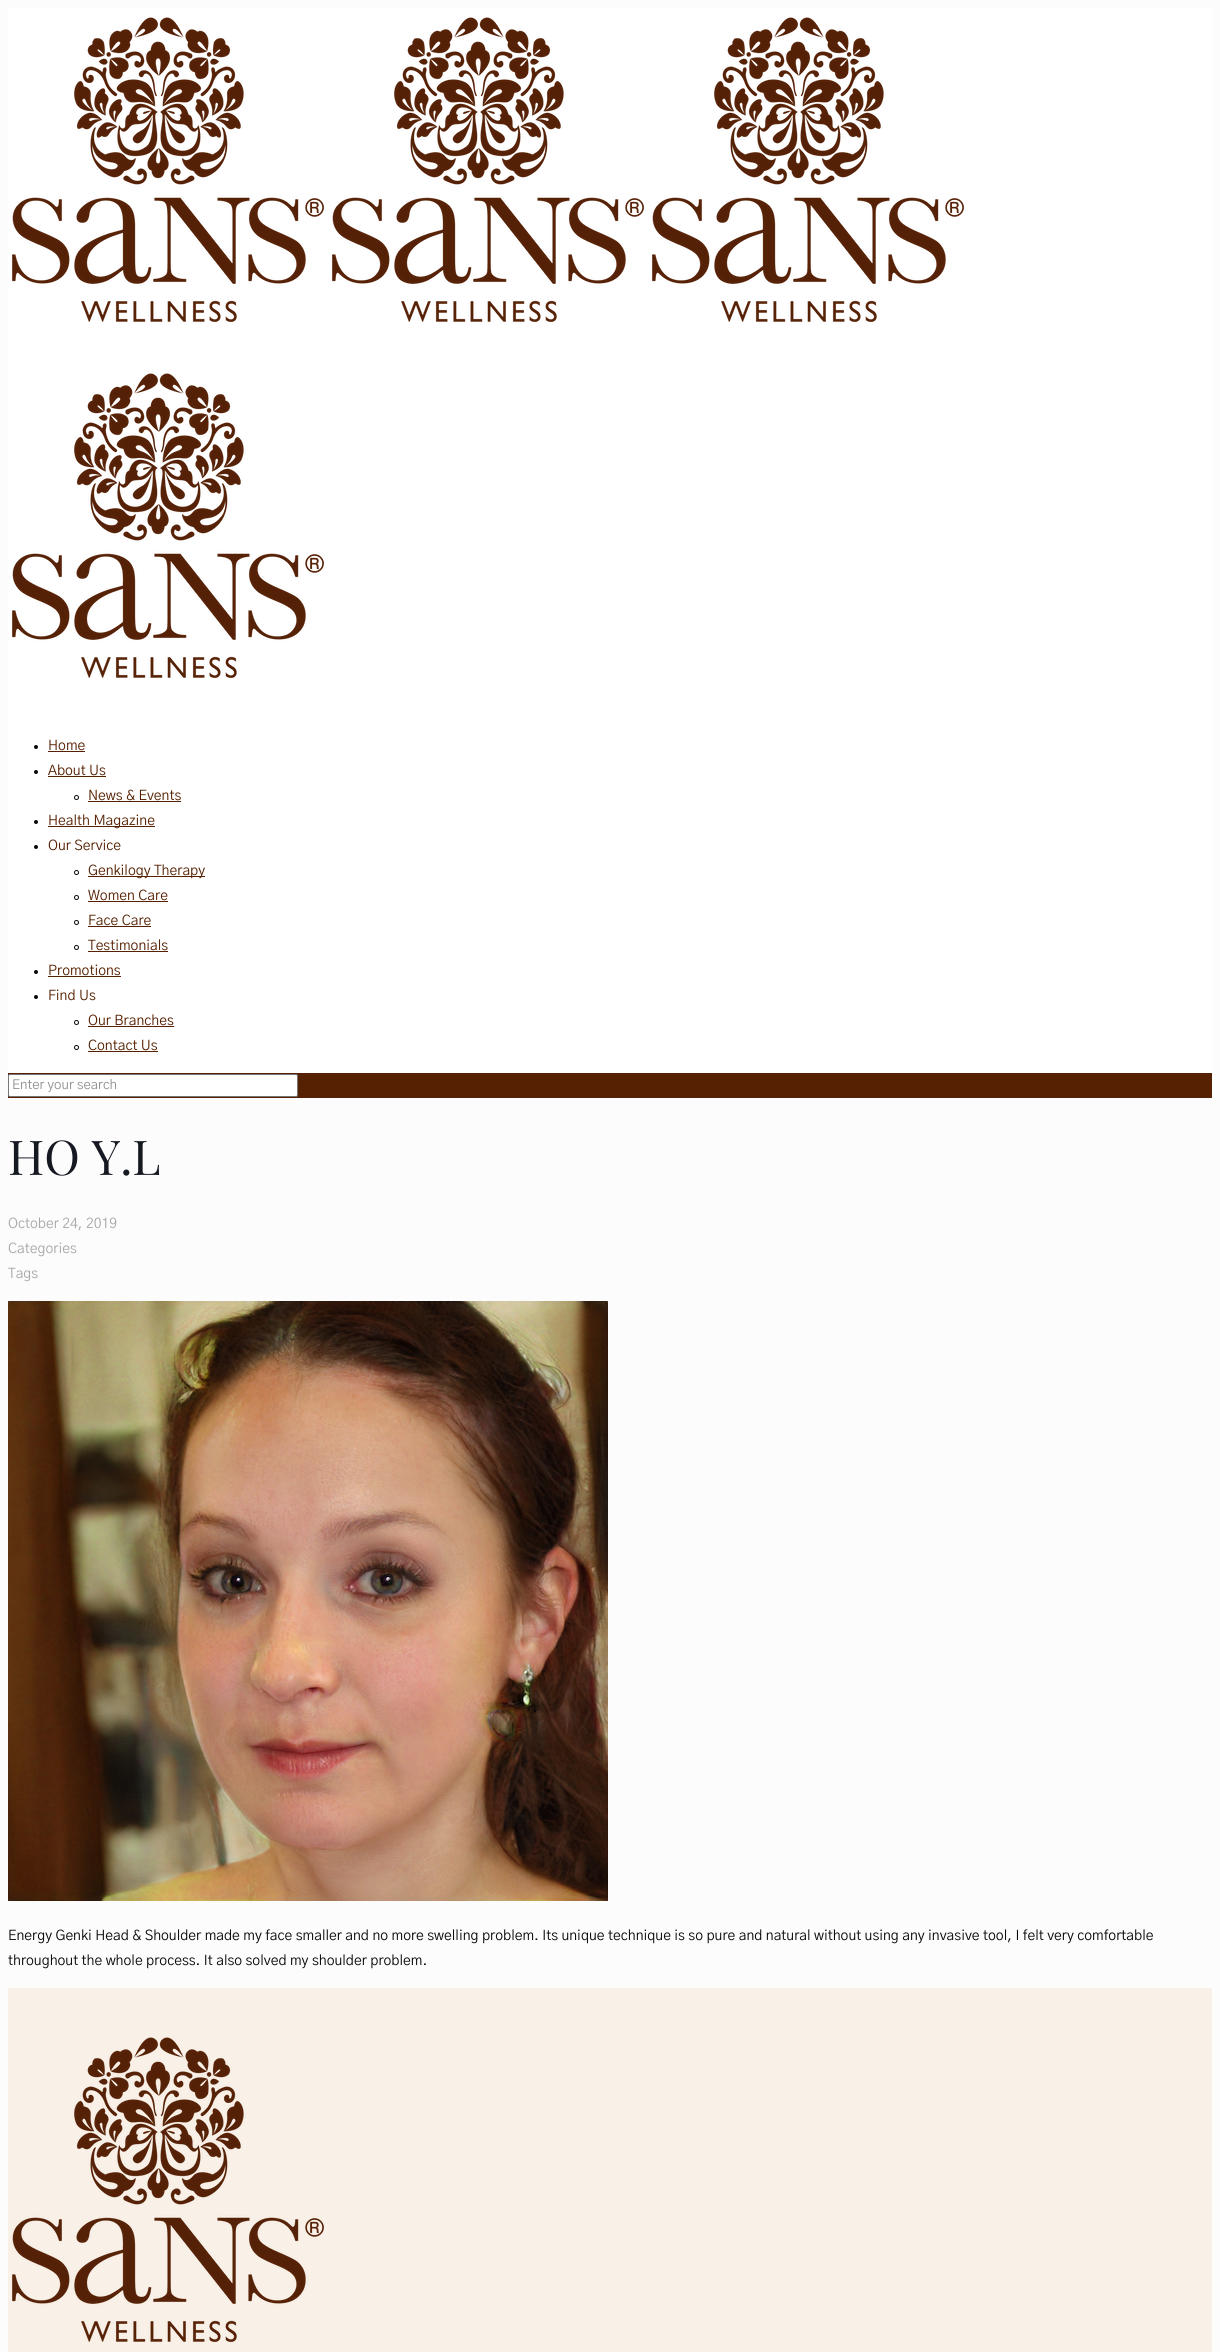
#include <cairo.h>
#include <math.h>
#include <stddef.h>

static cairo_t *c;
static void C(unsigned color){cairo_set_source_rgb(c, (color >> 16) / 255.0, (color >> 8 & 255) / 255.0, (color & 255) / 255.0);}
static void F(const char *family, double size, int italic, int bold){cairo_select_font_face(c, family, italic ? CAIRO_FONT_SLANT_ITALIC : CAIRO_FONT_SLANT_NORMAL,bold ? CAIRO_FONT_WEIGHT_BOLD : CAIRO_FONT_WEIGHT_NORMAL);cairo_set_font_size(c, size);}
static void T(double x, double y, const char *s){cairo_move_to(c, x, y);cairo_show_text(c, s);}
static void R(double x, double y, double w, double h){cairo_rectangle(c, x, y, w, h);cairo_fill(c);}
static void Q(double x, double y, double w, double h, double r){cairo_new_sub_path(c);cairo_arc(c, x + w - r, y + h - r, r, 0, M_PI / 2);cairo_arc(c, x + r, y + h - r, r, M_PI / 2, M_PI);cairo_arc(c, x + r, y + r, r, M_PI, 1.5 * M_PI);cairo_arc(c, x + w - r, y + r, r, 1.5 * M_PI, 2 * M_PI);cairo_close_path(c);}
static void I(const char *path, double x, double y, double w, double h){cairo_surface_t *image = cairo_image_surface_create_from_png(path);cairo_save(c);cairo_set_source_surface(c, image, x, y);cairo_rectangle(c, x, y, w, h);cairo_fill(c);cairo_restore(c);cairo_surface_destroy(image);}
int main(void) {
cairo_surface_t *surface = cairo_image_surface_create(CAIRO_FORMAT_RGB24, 1220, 2352);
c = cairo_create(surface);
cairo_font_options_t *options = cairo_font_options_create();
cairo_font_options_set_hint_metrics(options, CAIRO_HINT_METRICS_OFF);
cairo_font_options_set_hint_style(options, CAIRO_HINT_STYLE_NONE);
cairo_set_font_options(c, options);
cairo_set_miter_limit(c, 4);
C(0xfcfcfc);
cairo_paint(c);
C(0xffffff);
R(8,8,1204,1065);
I("1.png",12,17,312,306);
I("1.png",332,17,312,306);
I("1.png",652,17,312,306);
I("1.png",12,373,312,306);
C(0x0a0a0a);
cairo_arc(c,36,747,2,0,2 * M_PI);
cairo_fill(c);
F("Gothic A1",14,0,0);
C(0x552102);
T(48,750,"Home");
R(48,751,37,1);
C(0x0a0a0a);
cairo_new_path(c);
cairo_arc(c,36,772,2,0,2 * M_PI);
cairo_fill(c);
C(0x552102);
T(48,775,"About Us");
R(48,776,58,1);
cairo_new_path(c);
cairo_arc(c,76.5,797.5,2,0,2 * M_PI);
C(0x0a0a0a);
cairo_set_line_width(c,1);
cairo_stroke(c);
C(0x552102);
T(88,800,"News & Events");
R(88,801,93,1);
C(0x0a0a0a);
cairo_new_path(c);
cairo_arc(c,36,822,2,0,2 * M_PI);
cairo_fill(c);
C(0x552102);
R(48,826,107,1);
T(48,825,"Health Magazine");
C(0x0a0a0a);
cairo_new_path(c);
cairo_arc(c,36,847,2,0,2 * M_PI);
cairo_fill(c);
C(0x552102);
T(48,850,"Our Service");
cairo_new_path(c);
cairo_arc(c,76.5,872.5,2,0,2 * M_PI);
C(0x0a0a0a);
cairo_stroke(c);
C(0x552102);
R(88,876,117,1);
T(88,875,"Genkilogy Therapy");
cairo_new_path(c);
cairo_arc(c,76.5,897.5,2,0,2 * M_PI);
C(0x0a0a0a);
cairo_stroke(c);
C(0x552102);
T(88,900,"Women Care");
R(88,901,80,1);
cairo_new_path(c);
cairo_arc(c,76.5,922.5,2,0,2 * M_PI);
C(0x0a0a0a);
cairo_stroke(c);
C(0x552102);
T(88,925,"Face Care");
R(88,926,63,1);
cairo_new_path(c);
cairo_arc(c,76.5,947.5,2,0,2 * M_PI);
C(0x0a0a0a);
cairo_stroke(c);
C(0x552102);
T(88,950,"Testimonials");
R(88,951,80,1);
C(0x0a0a0a);
cairo_new_path(c);
cairo_arc(c,36,972,2,0,2 * M_PI);
cairo_fill(c);
C(0x552102);
T(48,975,"Promotions");
R(48,976,73,1);
C(0x0a0a0a);
cairo_new_path(c);
cairo_arc(c,36,997,2,0,2 * M_PI);
cairo_fill(c);
C(0x552102);
T(48,1000,"Find Us");
cairo_new_path(c);
cairo_arc(c,76.5,1022.5,2,0,2 * M_PI);
C(0x0a0a0a);
cairo_stroke(c);
C(0x552102);
T(88,1025,"Our Branches");
R(88,1026,86,1);
cairo_new_path(c);
cairo_arc(c,76.5,1047.5,2,0,2 * M_PI);
C(0x0a0a0a);
cairo_stroke(c);
C(0x552102);
T(88,1050,"Contact Us");
R(88,1051,70,1);
R(8,1073,1204,25);
C(0xffffff);
Q(8.5,1074.5,289,22,1.5);
cairo_fill_preserve(c);
C(0x767676);
cairo_stroke(c);
F("Gothic A1",13.25,0,0);
C(0x929292);
T(12,1089,"Enter your search");
F("Playfair Display",48,0,0);
C(0x161922);
T(8,1175,"HO Y.L");
F("Gothic A1",14,0,0);
C(0xa8a8a8);
T(8,1228,"October 24, 2019");
T(8,1253,"Categories");
T(8,1278,"Tags");
I("2.png",8,1301,600,600);
C(0x0a0a0a);
T(8,1940,"Energy Genki Head & Shoulder made my face smaller and no more swelling problem. Its unique technique is so pure and natural without using any invasive tool, I felt very comfortable");
T(8,1965,"throughout the whole process. It also solved my shoulder problem.");
C(0xf9f1e8);
R(8,1988,1204,364);
I("3.png",12,2037,312,306);
cairo_surface_write_to_png(surface, "o.png");
cairo_font_options_destroy(options);
cairo_destroy(c);
cairo_surface_destroy(surface);
return 0;
}
